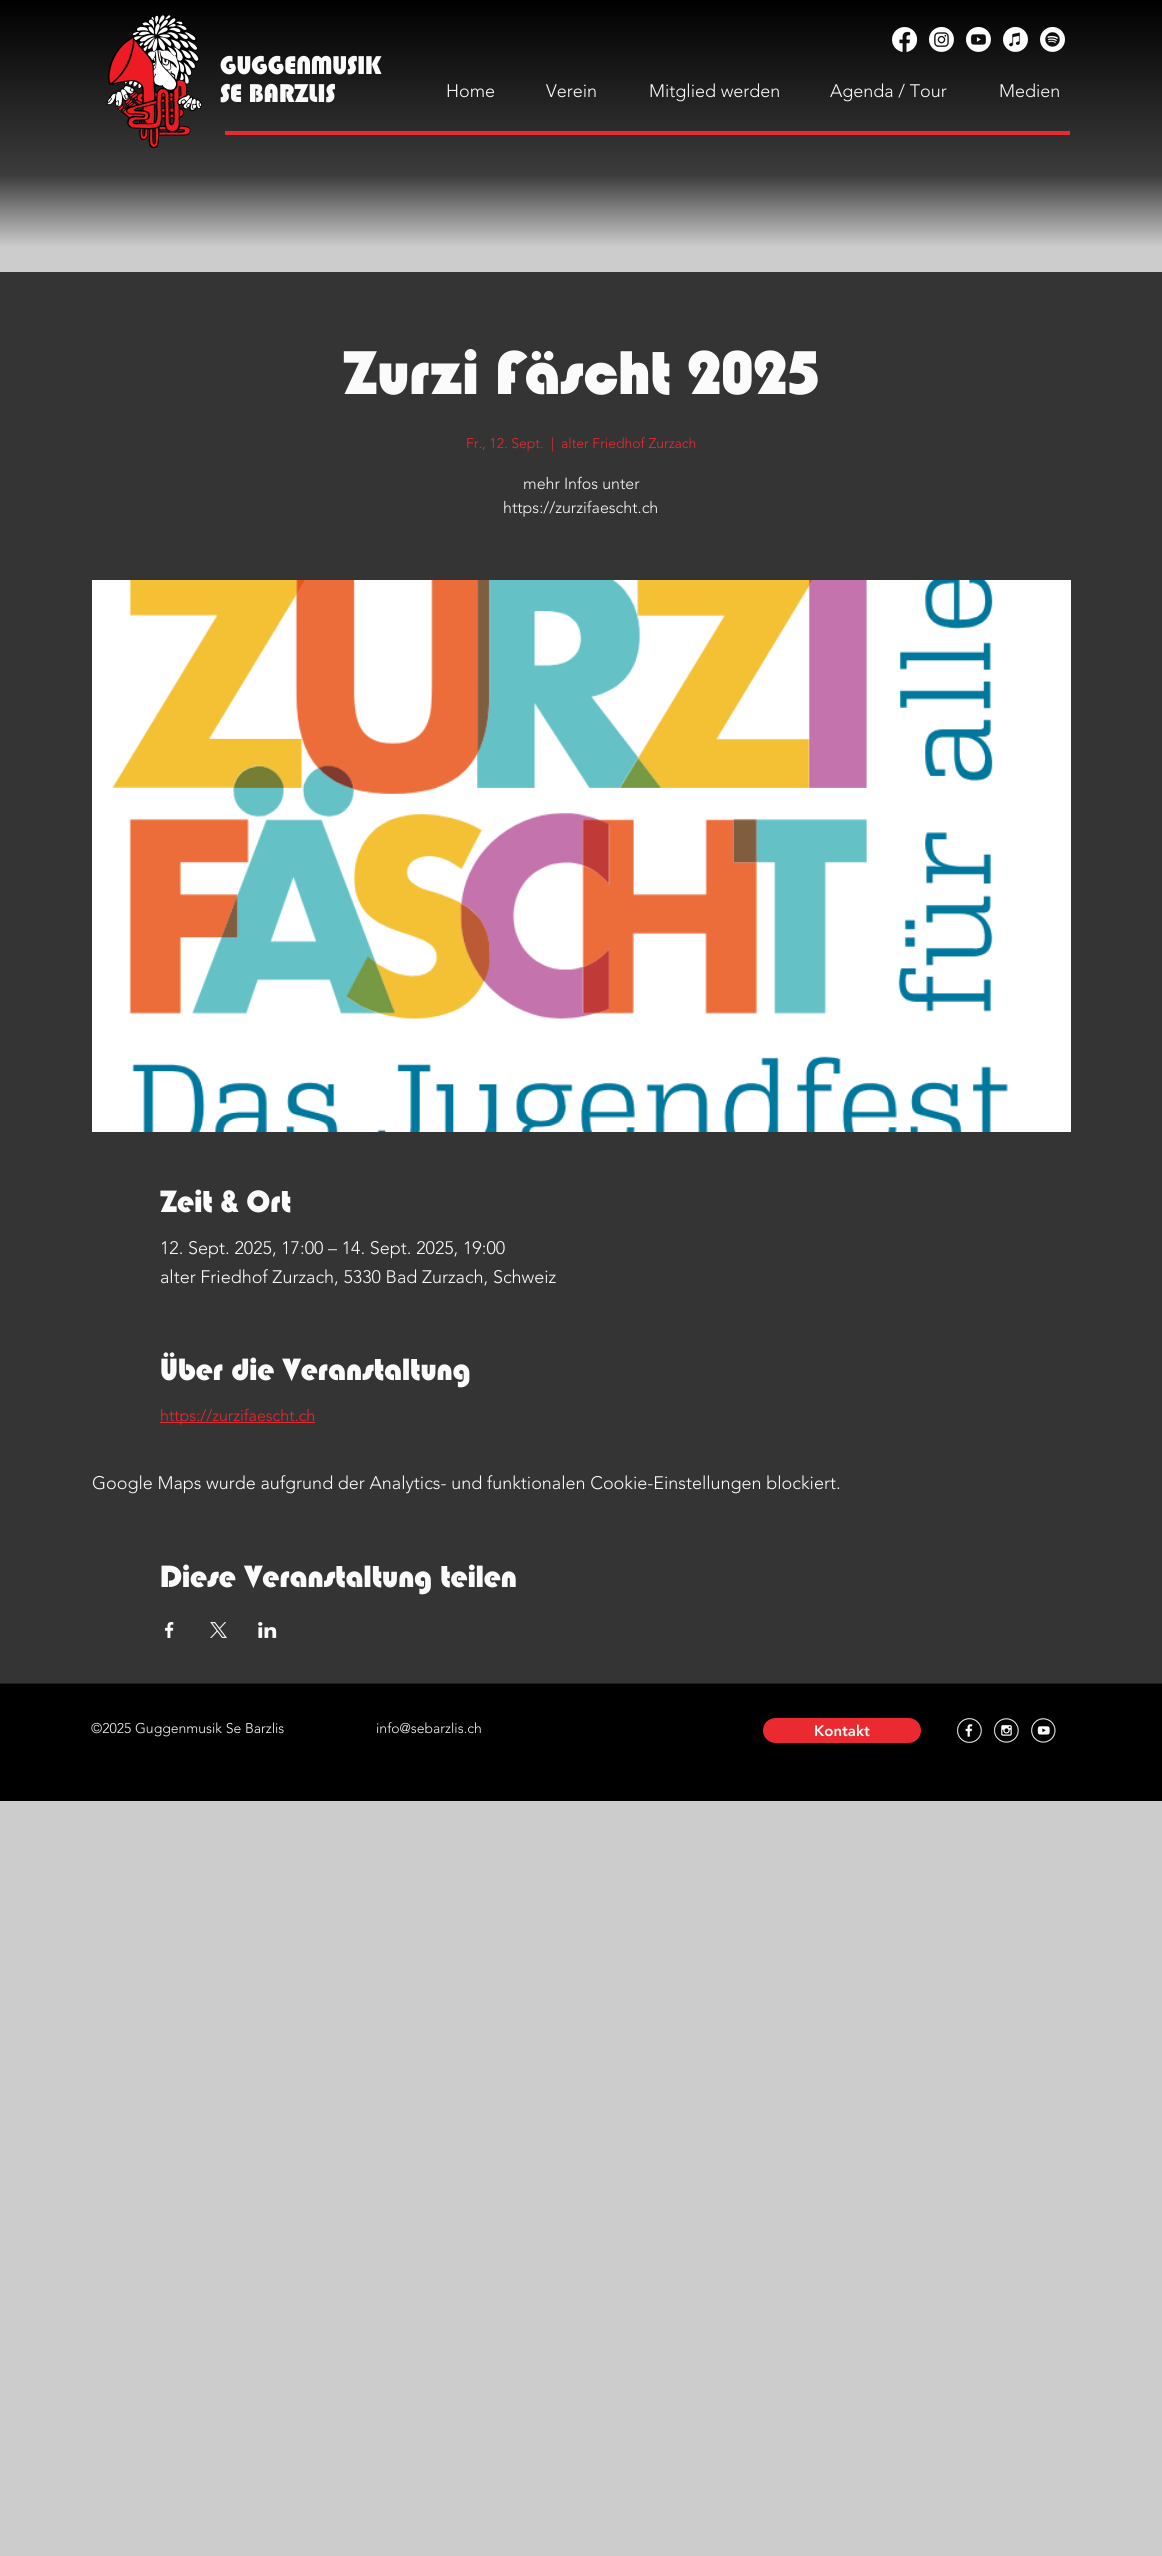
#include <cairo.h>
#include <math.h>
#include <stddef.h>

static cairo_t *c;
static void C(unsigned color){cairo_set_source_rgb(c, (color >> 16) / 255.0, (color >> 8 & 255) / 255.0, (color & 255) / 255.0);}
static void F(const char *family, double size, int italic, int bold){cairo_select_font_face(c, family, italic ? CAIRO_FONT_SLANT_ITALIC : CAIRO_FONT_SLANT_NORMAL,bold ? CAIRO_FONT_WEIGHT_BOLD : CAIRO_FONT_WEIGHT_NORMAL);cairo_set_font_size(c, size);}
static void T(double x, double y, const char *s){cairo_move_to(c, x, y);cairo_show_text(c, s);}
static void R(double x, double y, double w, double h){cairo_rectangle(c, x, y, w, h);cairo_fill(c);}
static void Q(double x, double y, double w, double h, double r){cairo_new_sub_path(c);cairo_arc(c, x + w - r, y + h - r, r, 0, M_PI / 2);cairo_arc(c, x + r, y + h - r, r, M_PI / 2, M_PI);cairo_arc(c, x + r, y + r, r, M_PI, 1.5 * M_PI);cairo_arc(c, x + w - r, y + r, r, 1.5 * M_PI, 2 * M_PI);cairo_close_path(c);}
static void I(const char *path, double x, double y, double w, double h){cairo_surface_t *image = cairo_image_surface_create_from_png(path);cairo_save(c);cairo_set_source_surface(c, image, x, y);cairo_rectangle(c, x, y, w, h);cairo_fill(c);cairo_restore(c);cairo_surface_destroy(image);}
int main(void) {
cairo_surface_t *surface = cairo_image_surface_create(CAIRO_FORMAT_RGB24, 1162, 2556);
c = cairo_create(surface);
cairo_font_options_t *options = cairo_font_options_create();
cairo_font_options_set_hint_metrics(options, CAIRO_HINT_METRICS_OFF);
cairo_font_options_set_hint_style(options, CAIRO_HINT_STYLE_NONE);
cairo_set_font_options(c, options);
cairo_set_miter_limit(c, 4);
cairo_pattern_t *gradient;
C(0xcccccc);
cairo_paint(c);
gradient = cairo_pattern_create_linear(581,0,581,247);
cairo_pattern_add_color_stop_rgba(gradient,0,0,0,0,1);
cairo_pattern_add_color_stop_rgba(gradient,.71,0.235,0.235,0.235,1);
cairo_pattern_add_color_stop_rgba(gradient,1,0.8,0.8,0.8,1);
cairo_set_source(c,gradient);
cairo_pattern_destroy(gradient);
R(0,0,1162,246);
I("1.png",106,14,96,135);
I("2.png",892,27,25,25);
I("3.png",929,27,25,25);
I("4.png",966,27,25,25);
I("5.png",1003,27,25,25);
I("6.png",1040,27,25,25);
F("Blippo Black",25,0,0);
C(0xfcfbfb);
T(220,74,"GUGGENMUSIK");
T(220,102,"SE BARZLIS");
F("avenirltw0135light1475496 Light",18,0,0);
T(446,97,"Home");
T(546,97,"Verein");
T(649,97,"Mitglied werden");
T(830,97,"Agenda / Tour");
T(999,97,"Medien");
C(0xeb2930);
R(225,131,845,4);
C(0x343434);
R(0,272,1162,1411);
F("Blippo Black",60,0,0);
C(0xfcfbfb);
T(343,394,"Zurzi Fäscht 2025");
F("avenirltw0135light1475496 Light",14,0,0);
C(0xeb2930);
T(466,448,"Fr., 12. Sept.");
T(551,448,"|");
T(561,448,"alter Friedhof Zurzach");
F("avenirltw0135light1475496 Light",16,0,0);
C(0xfcfbfb);
T(523,489,"mehr Infos unter");
T(503,513,"https://zurzifaescht.ch");
I("7.png",92,580,979,552);
F("Blippo Black",30,0,0);
T(160,1212,"Zeit & Ort");
F("avenirltw0135light1475496 Light",18,0,0);
T(160,1254,"12. Sept. 2025, 17:00 – 14. Sept. 2025, 19:00");
T(160,1283,"alter Friedhof Zurzach, 5330 Bad Zurzach, Schweiz");
F("Blippo Black",30,0,0);
T(160,1380,"Über die Veranstaltung");
C(0xeb2930);
R(160,1422,155,1);
F("avenirltw0135light1475496 Light",16,0,0);
T(160,1421,"https://zurzifaescht.ch");
F("avenirltw0135light1475496 Light",18,0,0);
C(0xfcfbfb);
T(92,1489,"Google Maps wurde aufgrund der Analytics- und funktionalen Cookie-Einstellungen blockiert.");
F("Blippo Black",30,0,0);
T(160,1587,"Diese Veranstaltung teilen");
I("8.png",165,1622,9,16);
I("9.png",210,1622,17,16);
I("10.png",258,1622,19,16);
C(0x000000);
R(0,1684,1162,117);
C(0x1f1f1f);
R(0,1683,1162,1);
F("avenirltw0135light1475496 Light",14,0,0);
C(0xfcfbfb);
T(91,1733,"©2025 Guggenmusik Se Barzlis");
T(376,1733,"info@sebarzlis.ch");
C(0xeb2930);
Q(763,1718,158,25,12.5);
cairo_fill(c);
F("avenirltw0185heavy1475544 Black",15,0,0);
C(0xfcfbfb);
T(814,1736,"Kontakt");
I("11.png",957,1718,25,25);
I("12.png",994,1718,25,25);
I("13.png",1031,1718,25,25);
cairo_surface_write_to_png(surface, "o.png");
cairo_font_options_destroy(options);
cairo_destroy(c);
cairo_surface_destroy(surface);
return 0;
}
